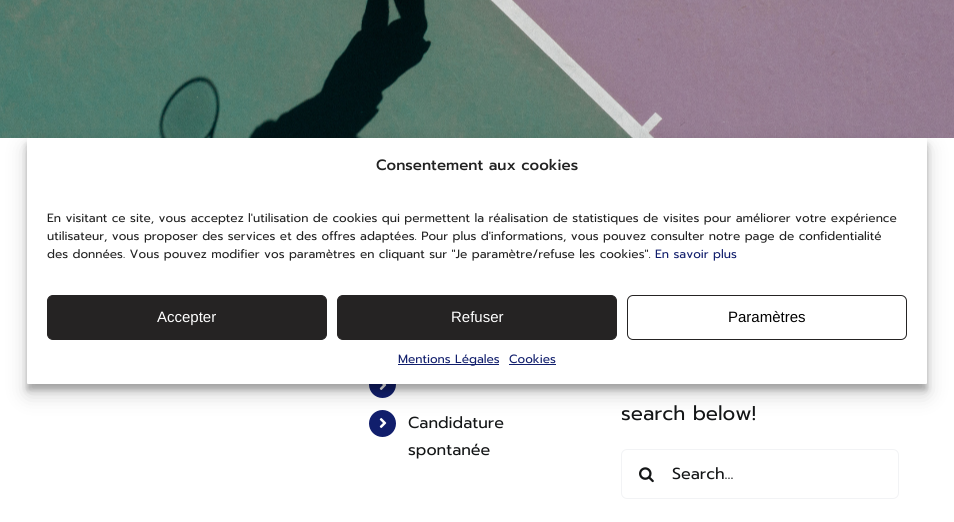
#include <cairo.h>
#include <math.h>
#include <stddef.h>

static cairo_t *c;
static void C(unsigned color){cairo_set_source_rgb(c, (color >> 16) / 255.0, (color >> 8 & 255) / 255.0, (color & 255) / 255.0);}
static void F(const char *family, double size, int italic, int bold){cairo_select_font_face(c, family, italic ? CAIRO_FONT_SLANT_ITALIC : CAIRO_FONT_SLANT_NORMAL,bold ? CAIRO_FONT_WEIGHT_BOLD : CAIRO_FONT_WEIGHT_NORMAL);cairo_set_font_size(c, size);}
static void T(double x, double y, const char *s){cairo_move_to(c, x, y);cairo_show_text(c, s);}
static void R(double x, double y, double w, double h){cairo_rectangle(c, x, y, w, h);cairo_fill(c);}
static void Q(double x, double y, double w, double h, double r){cairo_new_sub_path(c);cairo_arc(c, x + w - r, y + h - r, r, 0, M_PI / 2);cairo_arc(c, x + r, y + h - r, r, M_PI / 2, M_PI);cairo_arc(c, x + r, y + r, r, M_PI, 1.5 * M_PI);cairo_arc(c, x + w - r, y + r, r, 1.5 * M_PI, 2 * M_PI);cairo_close_path(c);}
static void S(double x, double y, double w, double h, double r, double blur, double alpha){cairo_push_group_with_content(c, CAIRO_CONTENT_ALPHA);cairo_set_operator(c, CAIRO_OPERATOR_SOURCE);for (int i = 15; i >= -15 && fmin(w, h) + blur * i / 3 > 0; i -= 2) {double e = blur * i / 6;cairo_set_source_rgba(c, 0, 0, 0, alpha * erfc((i - 1) / 8.5) / 2);Q(x - e, y - e, w + 2 * e, h + 2 * e, fmax(0, fmin(r + e + blur * .6, fmin(w, h) / 2 + e)));cairo_fill(c);}cairo_pattern_t *soft = cairo_pop_group(c);cairo_mask(c, soft);cairo_pattern_destroy(soft);}
static void I(const char *path, double x, double y, double w, double h){cairo_surface_t *image = cairo_image_surface_create_from_png(path);cairo_save(c);cairo_set_source_surface(c, image, x, y);cairo_rectangle(c, x, y, w, h);cairo_fill(c);cairo_restore(c);cairo_surface_destroy(image);}
int main(void) {
cairo_surface_t *surface = cairo_image_surface_create(CAIRO_FORMAT_RGB24, 954, 522);
c = cairo_create(surface);
cairo_font_options_t *options = cairo_font_options_create();
cairo_font_options_set_hint_metrics(options, CAIRO_HINT_METRICS_OFF);
cairo_font_options_set_hint_style(options, CAIRO_HINT_STYLE_NONE);
cairo_set_font_options(c, options);
cairo_set_miter_limit(c, 4);
C(0xffffff);
cairo_paint(c);
I("1.png",0,0,954,138);
C(0x111e6c);
cairo_arc(c,382.5,384.5,13.5,0,2 * M_PI);
cairo_fill(c);
I("2.png",379,384,8,6);
C(0x000000);
S(27,144,900,246,1,3,.23);
C(0x111e6c);
cairo_arc(c,382.5,423.5,13.5,0,2 * M_PI);
cairo_fill(c);
I("3.png",379,418,8,10);
C(0x000000);
S(27,148,900,246,1,10,.19);
C(0xffffff);
Q(27,138,900,246,1);
cairo_fill(c);
F("Prompt Medium",15,0,0);
C(0x222222);
T(376,170,"Consentement aux cookies");
F("Prompt",12,0,0);
T(47,222,"En visitant ce site, vous acceptez l'utilisation de cookies qui permettent la réalisation de statistiques de visites pour améliorer votre expérience");
T(47,240,"utilisateur, vous proposer des services et des offres adaptées. Pour plus d'informations, vous pouvez consulter notre page de confidentialité");
T(47,258,"des données. Vous pouvez modifier vos paramètres en cliquant sur \"Je paramètre/refuse les cookies\".");
C(0x111e6c);
T(655,258,"En savoir plus");
C(0x252323);
Q(47.5,295.5,279,44,5.5);
cairo_fill_preserve(c);
cairo_set_line_width(c,1);
cairo_stroke(c);
F("Liberation Sans",15,0,0);
C(0xffffff);
T(157,322,"Accepter");
C(0x252323);
Q(337.5,295.5,279,44,5.5);
cairo_fill_preserve(c);
cairo_stroke(c);
C(0xffffff);
T(451,322,"Refuser");
Q(627.5,295.5,279,44,5.5);
C(0x252323);
cairo_stroke(c);
C(0x000000);
T(728,322,"Paramètres");
C(0x111e6c);
R(398,364,101,1);
F("Prompt",12,0,0);
T(398,363,"Mentions Légales");
T(509,363,"Cookies");
R(509,364,47,1);
F("Prompt",16,0,0);
C(0x141617);
T(408,428,"Candidature");
T(408,455,"spontanée");
F("Prompt",20,0,0);
T(621,420,"search below!");
Q(621.5,449.5,277,49,5.5);
C(0xf2f3f5);
cairo_stroke(c);
I("4.png",639,467,15,16);
F("Prompt",16,0,0);
C(0x141617);
T(672,479,"Search...");
cairo_surface_write_to_png(surface, "o.png");
cairo_font_options_destroy(options);
cairo_destroy(c);
cairo_surface_destroy(surface);
return 0;
}
